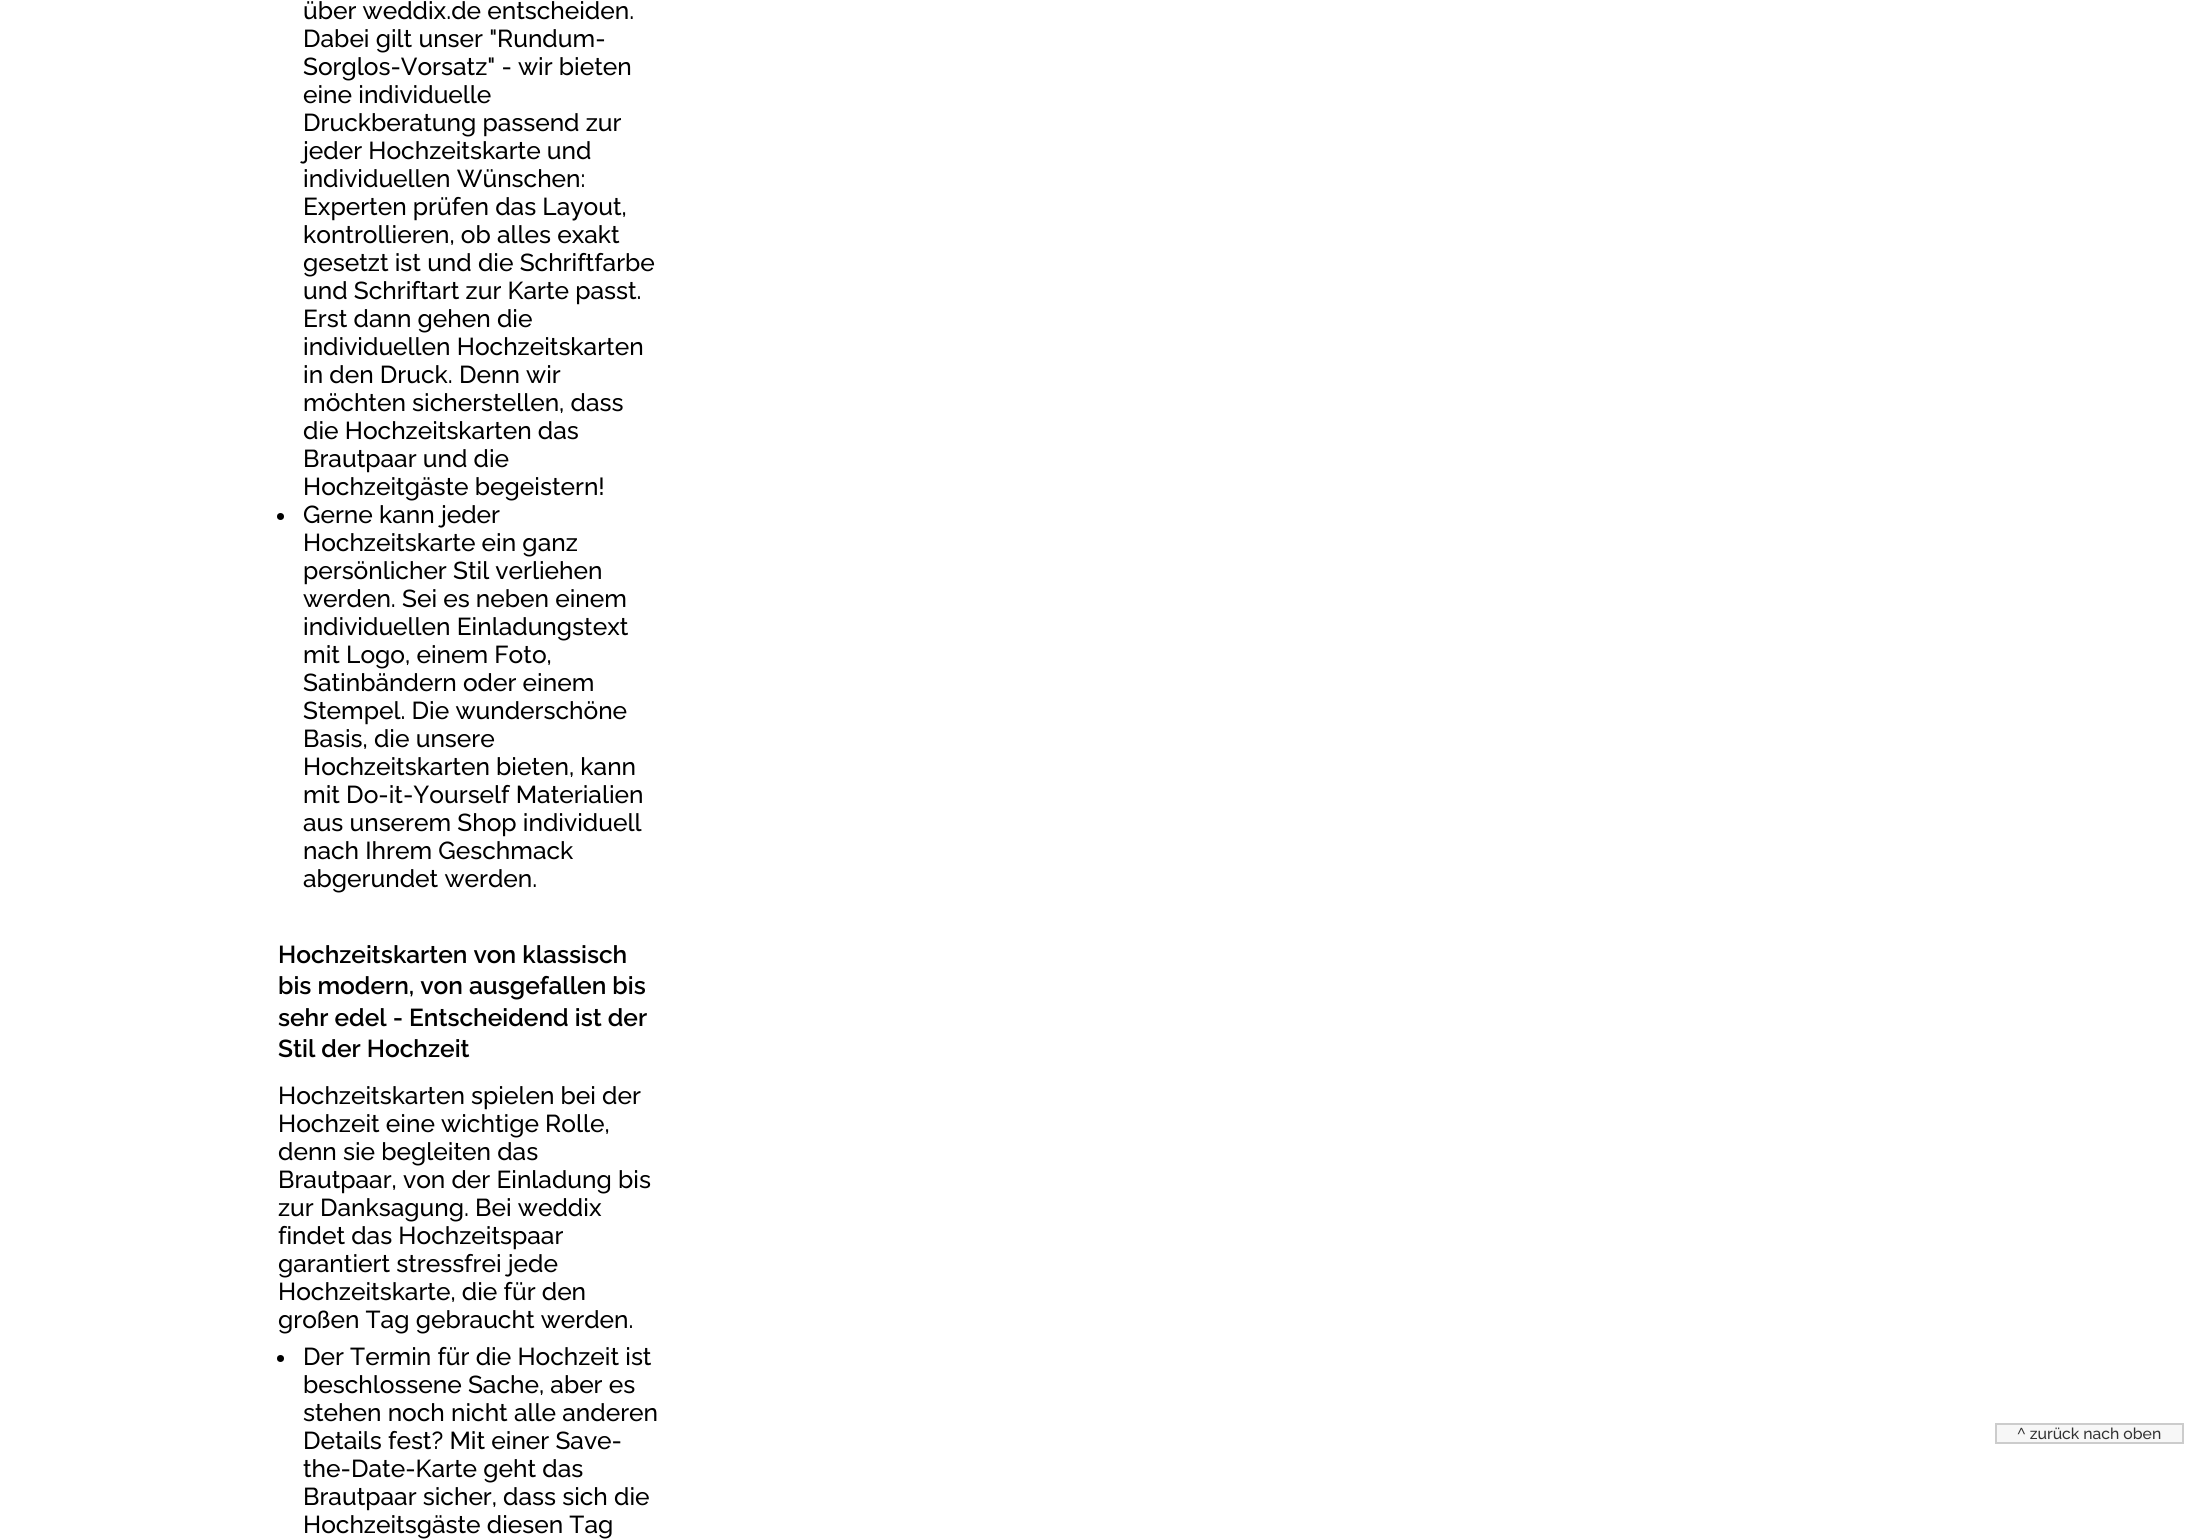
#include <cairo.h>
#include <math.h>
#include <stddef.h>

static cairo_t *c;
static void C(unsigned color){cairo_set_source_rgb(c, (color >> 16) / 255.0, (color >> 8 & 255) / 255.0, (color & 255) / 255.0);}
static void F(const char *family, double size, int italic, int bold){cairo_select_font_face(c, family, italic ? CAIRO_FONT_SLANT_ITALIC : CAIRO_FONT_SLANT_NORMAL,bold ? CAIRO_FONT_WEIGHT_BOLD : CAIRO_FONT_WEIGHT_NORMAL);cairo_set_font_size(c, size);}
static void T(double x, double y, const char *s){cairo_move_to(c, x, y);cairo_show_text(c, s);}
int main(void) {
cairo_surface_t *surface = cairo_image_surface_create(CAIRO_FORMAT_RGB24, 2200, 1540);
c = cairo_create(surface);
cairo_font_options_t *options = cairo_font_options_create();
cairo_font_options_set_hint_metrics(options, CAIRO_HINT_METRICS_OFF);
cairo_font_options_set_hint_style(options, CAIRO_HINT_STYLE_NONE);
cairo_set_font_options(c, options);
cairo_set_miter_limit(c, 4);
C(0xffffff);
cairo_paint(c);
F("Raleway Medium",24.5,0,0);
C(0x000000);
T(303,19,"über weddix.de entscheiden.");
T(303,47,"Dabei gilt unser \"Rundum-");
T(303,75,"Sorglos-Vorsatz\" - wir bieten");
T(303,103,"eine individuelle");
T(303,131,"Druckberatung passend zur");
T(303,159,"jeder Hochzeitskarte und");
T(303,187,"individuellen Wünschen:");
T(303,215,"Experten prüfen das Layout,");
T(303,243,"kontrollieren, ob alles exakt");
T(303,271,"gesetzt ist und die Schriftfarbe");
T(303,299,"und Schriftart zur Karte passt.");
T(303,327,"Erst dann gehen die");
T(303,355,"individuellen Hochzeitskarten");
T(303,383,"in den Druck. Denn wir");
T(303,411,"möchten sicherstellen, dass");
T(303,439,"die Hochzeitskarten das");
T(303,467,"Brautpaar und die");
T(303,495,"Hochzeitgäste begeistern!");
cairo_new_path(c);
cairo_arc(c,280.5,516.5,3.5,0,2 * M_PI);
cairo_fill(c);
T(303,523,"Gerne kann jeder");
T(303,551,"Hochzeitskarte ein ganz");
T(303,579,"persönlicher Stil verliehen");
T(303,607,"werden. Sei es neben einem");
T(303,635,"individuellen Einladungstext");
T(303,663,"mit Logo, einem Foto,");
T(303,691,"Satinbändern oder einem");
T(303,719,"Stempel. Die wunderschöne");
T(303,747,"Basis, die unsere");
T(303,775,"Hochzeitskarten bieten, kann");
T(303,803,"mit Do-it-Yourself Materialien");
T(303,831,"aus unserem Shop individuell");
T(303,859,"nach Ihrem Geschmack");
T(303,887,"abgerundet werden.");
F("Raleway SemiBold",24.5,0,0);
T(278,963,"Hochzeitskarten von klassisch");
T(278,994,"bis modern, von ausgefallen bis");
T(278,1026,"sehr edel - Entscheidend ist der");
T(278,1057,"Stil der Hochzeit");
F("Raleway Medium",24.5,0,0);
T(278,1104,"Hochzeitskarten spielen bei der");
T(278,1132,"Hochzeit eine wichtige Rolle,");
T(278,1160,"denn sie begleiten das");
T(278,1188,"Brautpaar, von der Einladung bis");
T(278,1216,"zur Danksagung. Bei weddix");
T(278,1244,"findet das Hochzeitspaar");
T(278,1272,"garantiert stressfrei jede");
T(278,1300,"Hochzeitskarte, die für den");
T(278,1328,"großen Tag gebraucht werden.");
cairo_new_path(c);
cairo_arc(c,280.5,1358.5,3.5,0,2 * M_PI);
cairo_fill(c);
T(303,1365,"Der Termin für die Hochzeit ist");
T(303,1393,"beschlossene Sache, aber es");
T(303,1421,"stehen noch nicht alle anderen");
T(303,1449,"Details fest? Mit einer Save-");
T(303,1477,"the-Date-Karte geht das");
T(303,1505,"Brautpaar sicher, dass sich die");
T(303,1533,"Hochzeitsgäste diesen Tag");
C(0xf7f7f7);
cairo_rectangle(c,1996,1424,187,19);
cairo_fill_preserve(c);
C(0xcccccc);
cairo_stroke(c);
F("Raleway Medium",15.75,0,0);
C(0x333333);
T(2017,1439,"^ zurück nach oben");
cairo_surface_write_to_png(surface, "o.png");
cairo_font_options_destroy(options);
cairo_destroy(c);
cairo_surface_destroy(surface);
return 0;
}
